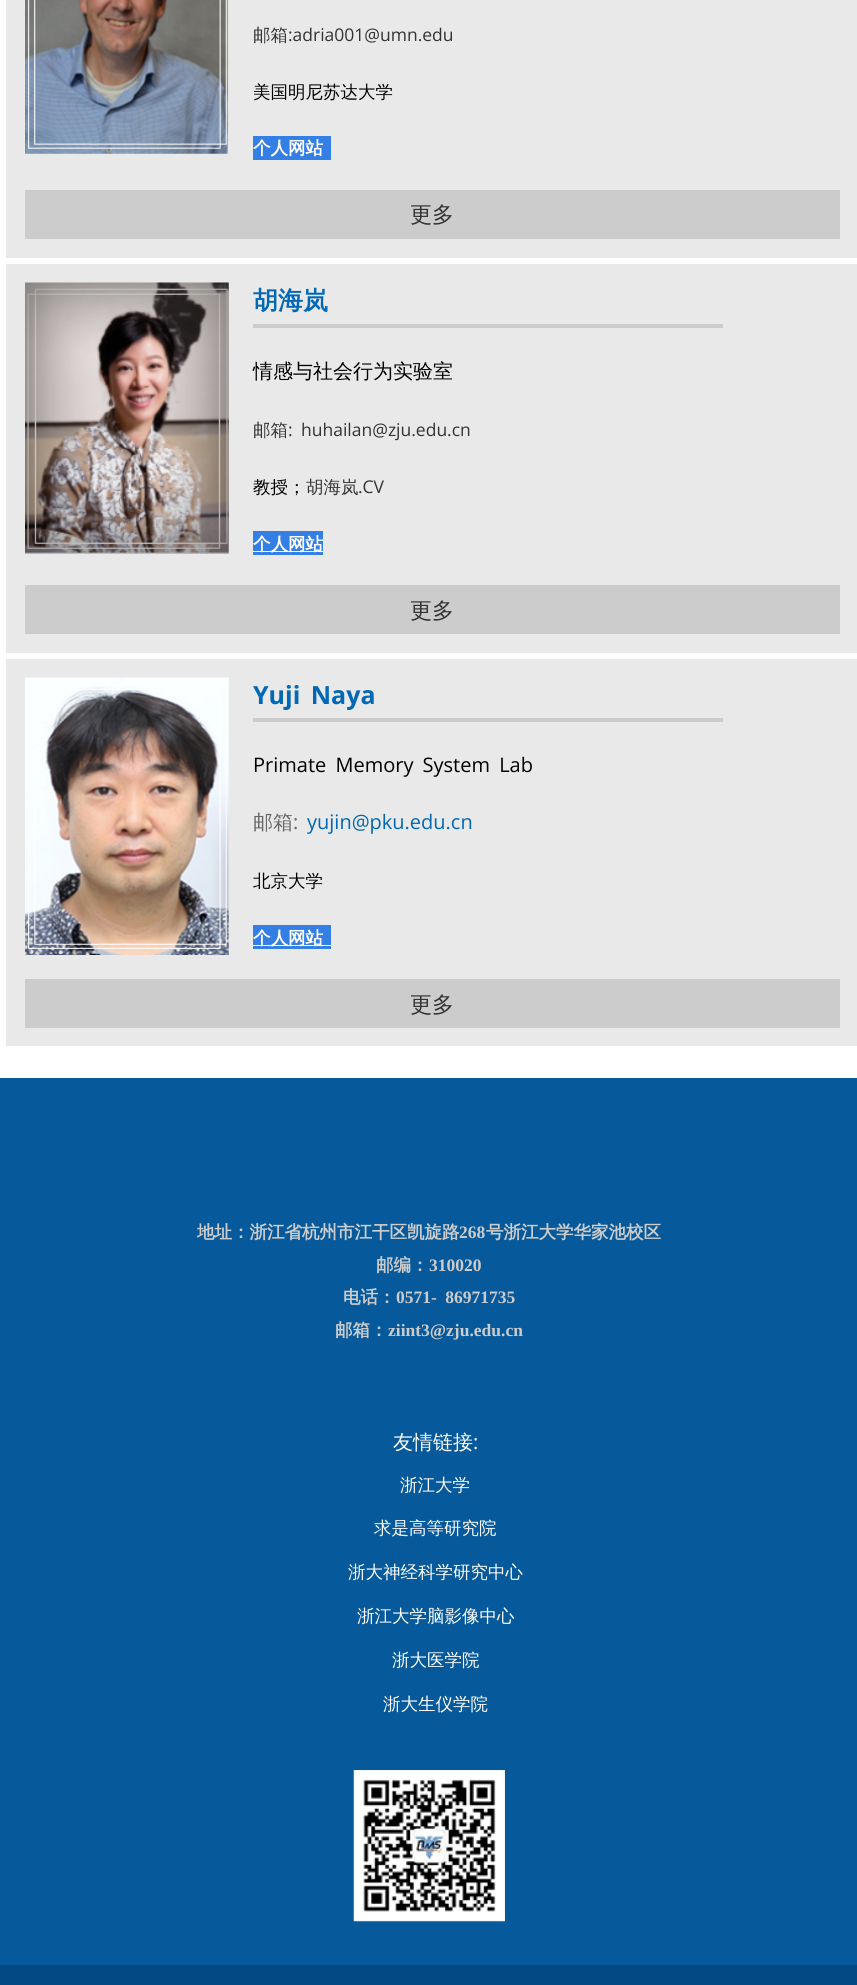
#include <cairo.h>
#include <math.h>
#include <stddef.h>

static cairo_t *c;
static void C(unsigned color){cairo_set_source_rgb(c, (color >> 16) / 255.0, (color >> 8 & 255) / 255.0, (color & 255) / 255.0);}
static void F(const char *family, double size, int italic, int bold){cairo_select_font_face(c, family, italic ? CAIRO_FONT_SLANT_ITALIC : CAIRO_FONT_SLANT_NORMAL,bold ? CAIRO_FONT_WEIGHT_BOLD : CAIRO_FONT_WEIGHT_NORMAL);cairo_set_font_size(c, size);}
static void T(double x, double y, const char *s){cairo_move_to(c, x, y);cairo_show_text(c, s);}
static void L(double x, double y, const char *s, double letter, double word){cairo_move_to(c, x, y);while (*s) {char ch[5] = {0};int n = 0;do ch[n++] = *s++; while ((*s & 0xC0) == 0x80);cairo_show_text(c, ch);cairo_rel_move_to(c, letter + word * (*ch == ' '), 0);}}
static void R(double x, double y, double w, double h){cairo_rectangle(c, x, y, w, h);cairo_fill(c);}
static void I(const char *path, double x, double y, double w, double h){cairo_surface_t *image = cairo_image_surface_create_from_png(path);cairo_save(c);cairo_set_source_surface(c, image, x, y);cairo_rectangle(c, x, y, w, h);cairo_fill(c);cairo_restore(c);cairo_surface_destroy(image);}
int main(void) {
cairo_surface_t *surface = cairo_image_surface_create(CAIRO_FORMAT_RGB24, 857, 1985);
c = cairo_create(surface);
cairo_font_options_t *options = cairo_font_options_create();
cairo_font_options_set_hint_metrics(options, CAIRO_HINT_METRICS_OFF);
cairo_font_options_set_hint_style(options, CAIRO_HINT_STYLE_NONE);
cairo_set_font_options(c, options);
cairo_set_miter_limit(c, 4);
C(0xffffff);
cairo_paint(c);
C(0xe9e9e9);
R(6,0,851,258);
I("1.png",25,0,204,154);
F("WenQuanYi Zen Hei Medium",17.5,0,0);
C(0x333333);
T(253,41,"邮箱");
F("Open Sans",17.5,0,0);
T(288,41,":adria001@umn.edu");
F("WenQuanYi Zen Hei Medium",17.5,0,0);
C(0x010101);
T(253,98,"美国明尼苏达大学");
C(0x337fe5);
R(253,136,78,24);
F("WenQuanYi Zen Hei",17.5,0,1);
C(0xffffff);
T(253,154,"个人网站");
C(0xcccccc);
R(25,190,815,49);
F("WenQuanYi Zen Hei Medium",22,0,0);
C(0x333333);
T(410,222,"更多");
C(0xe9e9e9);
R(6,264,851,389);
I("2.png",25,282,204,272);
C(0xcccccc);
R(253,324,470,4);
F("WenQuanYi Zen Hei",25,0,1);
C(0x0068b7);
T(253,309,"胡海岚");
F("WenQuanYi Zen Hei Medium",20,0,0);
C(0x010101);
T(253,378,"情感与社会行为实验室");
F("WenQuanYi Zen Hei Medium",17.5,0,0);
C(0x333333);
T(253,436,"邮箱");
F("Open Sans",17.5,0,0);
T(288,436,":");
T(301,436,"huhailan@zju.edu.cn");
F("WenQuanYi Zen Hei Medium",17.5,0,0);
C(0x010101);
T(253,493,"教授；");
C(0x333333);
T(306,493,"胡海岚");
F("Open Sans",17.5,0,0);
T(358,493,".CV");
C(0x337fe5);
R(253,531,70,24);
C(0xffffff);
R(253,551,70,1);
F("WenQuanYi Zen Hei",17.5,0,1);
T(253,550,"个人网站");
C(0xcccccc);
R(25,585,815,49);
F("WenQuanYi Zen Hei Medium",22,0,0);
C(0x333333);
T(410,618,"更多");
C(0xe9e9e9);
R(6,659,851,387);
I("3.png",25,677,204,278);
C(0xcccccc);
R(253,718,470,4);
F("Open Sans",25,0,1);
C(0x0068b7);
L(253,704,"Yuji Naya",0,4);
F("Open Sans",20,0,0);
C(0x010101);
L(253,772,"Primate Memory System Lab",0,4);
F("WenQuanYi Zen Hei Medium",20,0,0);
C(0x666666);
T(253,829,"邮箱");
F("Open Sans",20,0,0);
T(293,829,":");
C(0x0068b7);
T(307,829,"yujin@pku.edu.cn");
F("WenQuanYi Zen Hei Medium",17.5,0,0);
C(0x010101);
T(253,887,"北京大学");
C(0x337fe5);
R(253,925,78,24);
C(0xffffff);
R(253,945,78,1);
F("WenQuanYi Zen Hei",17.5,0,1);
T(253,944,"个人网站");
C(0xcccccc);
R(25,979,815,49);
F("WenQuanYi Zen Hei Medium",22,0,0);
C(0x333333);
T(410,1012,"更多");
C(0x06599b);
R(0,1078,857,887);
F("WenQuanYi Zen Hei",17.5,0,1);
C(0xcccccc);
T(197,1238,"地址：浙江省杭州市江干区凯旋路");
F("Liberation Serif",17.5,0,1);
T(459,1238,"268");
F("WenQuanYi Zen Hei",17.5,0,1);
T(486,1238,"号浙江大学华家池校区");
T(376,1271,"邮编：");
F("Liberation Serif",17.5,0,1);
T(429,1271,"310020");
F("WenQuanYi Zen Hei",17.5,0,1);
T(343,1303,"电话：");
F("Liberation Serif",17.5,0,1);
L(396,1303,"0571- 86971735",0,4);
F("WenQuanYi Zen Hei",17.5,0,1);
T(335,1336,"邮箱：");
F("Liberation Serif",17.5,0,1);
T(388,1336,"ziint3@zju.edu.cn");
F("WenQuanYi Zen Hei Medium",20,0,0);
C(0xffffff);
T(393,1449,"友情链接");
F("Open Sans",20,0,0);
T(473,1449,":");
F("WenQuanYi Zen Hei Medium",17.5,0,0);
T(400,1491,"浙江大学");
T(374,1534,"求是高等研究院");
T(348,1578,"浙大神经科学研究中心");
T(357,1622,"浙江大学脑影像中心");
T(392,1666,"浙大医学院");
T(383,1710,"浙大生仪学院");
I("4.png",353,1770,152,152);
C(0x034a82);
R(0,1965,857,20);
cairo_surface_write_to_png(surface, "o.png");
cairo_font_options_destroy(options);
cairo_destroy(c);
cairo_surface_destroy(surface);
return 0;
}
